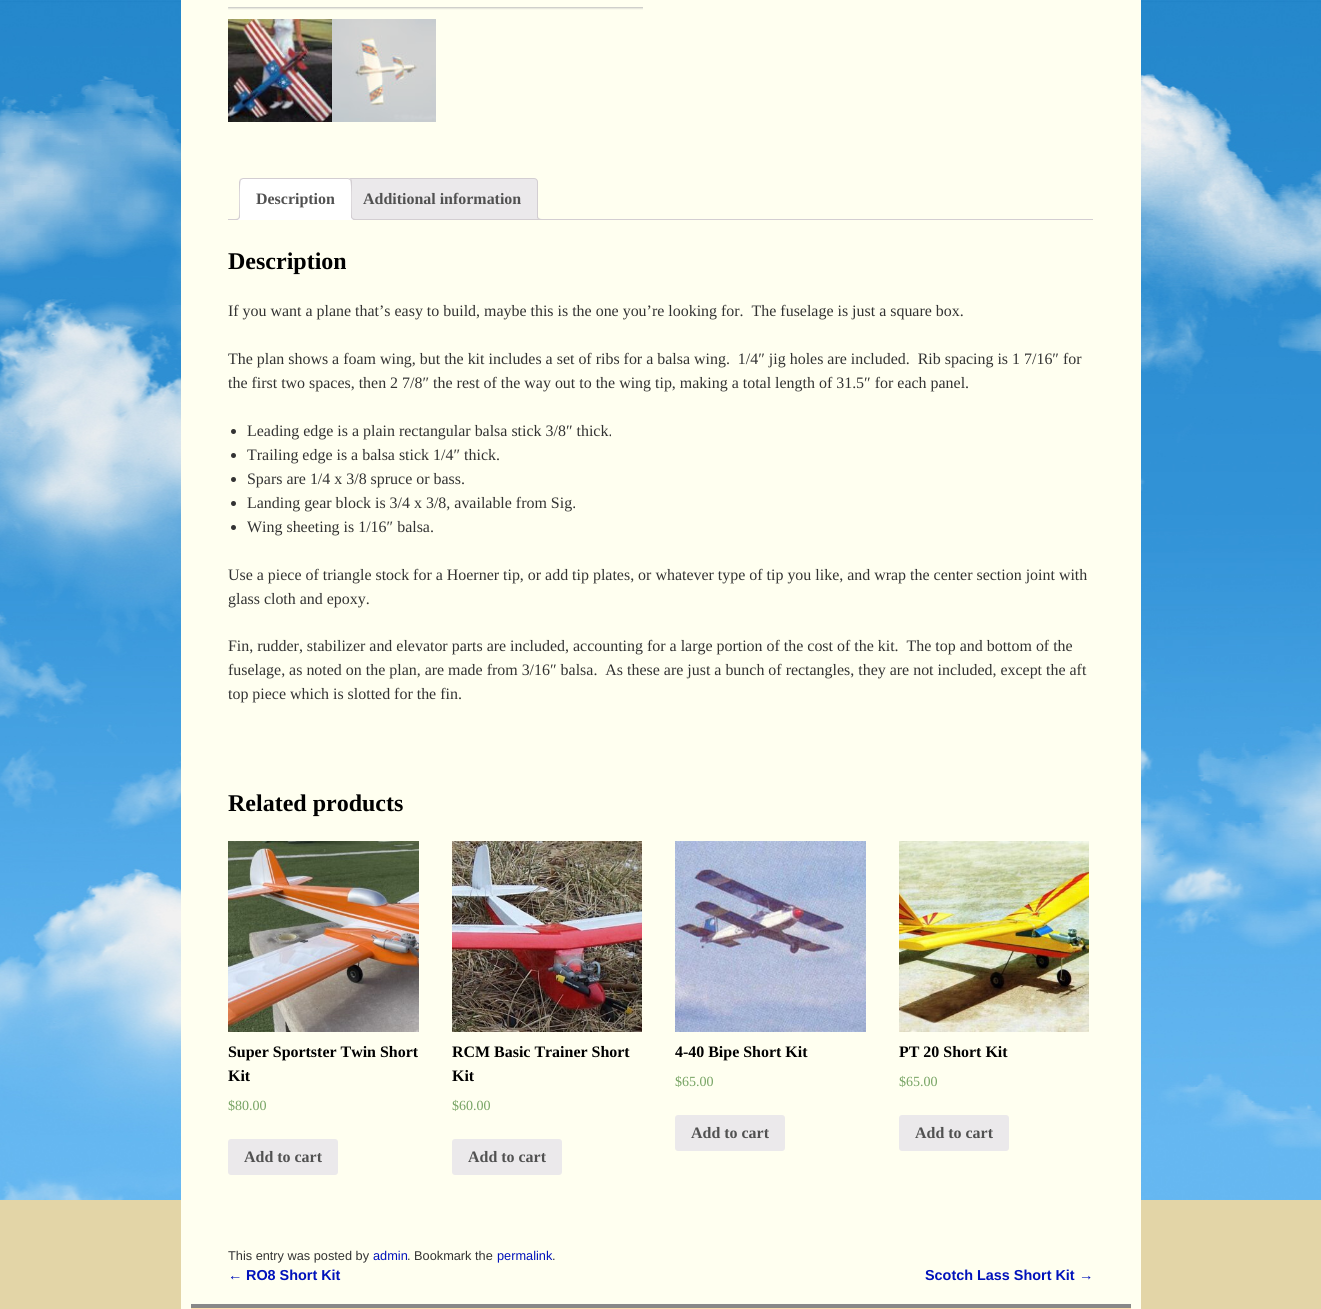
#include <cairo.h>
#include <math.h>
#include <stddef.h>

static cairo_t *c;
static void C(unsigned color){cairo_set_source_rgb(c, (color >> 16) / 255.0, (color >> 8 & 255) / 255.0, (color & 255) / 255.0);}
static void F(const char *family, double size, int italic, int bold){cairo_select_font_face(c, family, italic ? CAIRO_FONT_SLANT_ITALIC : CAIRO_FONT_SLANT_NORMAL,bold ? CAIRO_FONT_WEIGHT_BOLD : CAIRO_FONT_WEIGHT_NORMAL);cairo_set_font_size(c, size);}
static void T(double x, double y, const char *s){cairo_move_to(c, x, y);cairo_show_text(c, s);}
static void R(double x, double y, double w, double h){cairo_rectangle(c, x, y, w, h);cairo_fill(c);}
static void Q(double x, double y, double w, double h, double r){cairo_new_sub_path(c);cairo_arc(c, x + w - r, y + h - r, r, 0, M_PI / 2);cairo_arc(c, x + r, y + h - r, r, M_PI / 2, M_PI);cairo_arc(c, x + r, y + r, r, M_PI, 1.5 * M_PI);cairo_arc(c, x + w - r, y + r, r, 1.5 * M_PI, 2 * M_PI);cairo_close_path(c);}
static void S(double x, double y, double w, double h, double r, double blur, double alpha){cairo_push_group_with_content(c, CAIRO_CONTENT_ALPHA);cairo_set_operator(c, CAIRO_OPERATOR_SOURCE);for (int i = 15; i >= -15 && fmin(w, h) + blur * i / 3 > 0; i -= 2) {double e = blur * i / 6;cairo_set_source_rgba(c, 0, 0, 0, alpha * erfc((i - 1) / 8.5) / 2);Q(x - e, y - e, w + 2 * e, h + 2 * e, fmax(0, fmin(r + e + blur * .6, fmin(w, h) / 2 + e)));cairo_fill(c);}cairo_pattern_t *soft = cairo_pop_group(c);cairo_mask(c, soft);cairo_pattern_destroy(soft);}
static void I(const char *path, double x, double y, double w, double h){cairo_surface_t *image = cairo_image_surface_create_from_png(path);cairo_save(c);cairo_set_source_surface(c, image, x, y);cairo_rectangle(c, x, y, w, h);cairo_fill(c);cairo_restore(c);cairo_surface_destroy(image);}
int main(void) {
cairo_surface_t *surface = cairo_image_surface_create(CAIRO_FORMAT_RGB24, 1321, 1309);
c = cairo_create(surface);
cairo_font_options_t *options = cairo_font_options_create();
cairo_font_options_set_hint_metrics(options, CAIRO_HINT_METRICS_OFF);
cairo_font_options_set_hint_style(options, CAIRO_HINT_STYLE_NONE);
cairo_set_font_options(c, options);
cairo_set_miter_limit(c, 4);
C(0xe3d5a7);
cairo_paint(c);
I("1.png",0,0,1321,1200);
C(0xfffff0);
R(181,0,960,1309);
cairo_save(c);
cairo_rectangle(c,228,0,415,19);
cairo_clip(c);
cairo_rectangle(c,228,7,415,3);
cairo_clip(c);
C(0xbbbbbb);
S(228,-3,431,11,0,1,1);
cairo_restore(c);
I("2.png",228,19,104,103);
I("3.png",332,19,104,103);
C(0xebe9eb);
cairo_new_path(c);
cairo_move_to(c,350,178.5);
cairo_line_to(c,534,178.5);
cairo_curve_to(c,536,178.5,537.5,180,537.5,182);
cairo_line_to(c,537.5,219.5);
cairo_line_to(c,346.5,219.5);
cairo_line_to(c,346.5,182);
cairo_curve_to(c,346.5,180,348,178.5,350,178.5);
cairo_close_path(c);
cairo_fill_preserve(c);
C(0xd3ced2);
cairo_set_line_width(c,1);
cairo_stroke(c);
cairo_save(c);
cairo_rectangle(c,228,178,865,42);
cairo_clip(c);
C(0xebe9eb);
cairo_new_path(c);
cairo_move_to(c,535,217);
cairo_curve_to(c,535,220.5,536.5,222,540,222);
cairo_line_to(c,540,220);
cairo_curve_to(c,538.5,219.5,537.5,218.5,537,217);
cairo_close_path(c);
cairo_fill(c);
cairo_restore(c);
cairo_set_fill_rule(c,CAIRO_FILL_RULE_EVEN_ODD);
cairo_new_path(c);
cairo_move_to(c,537,215);
cairo_line_to(c,542,215);
cairo_line_to(c,542,220);
cairo_curve_to(c,539.5,220,537,219,537,216);
cairo_close_path(c);
cairo_move_to(c,538,215);
cairo_line_to(c,542,215);
cairo_line_to(c,542,219);
cairo_curve_to(c,540,219,538,218.5,538,216);
cairo_close_path(c);
cairo_fill(c);
R(228,219,865,1);
C(0xffffff);
cairo_new_path(c);
cairo_move_to(c,243,178);
cairo_line_to(c,348,178);
cairo_curve_to(c,350,178,352,180,352,182);
cairo_line_to(c,352,220);
cairo_line_to(c,239,220);
cairo_line_to(c,239,182);
cairo_curve_to(c,239,180,241,178,243,178);
cairo_close_path(c);
cairo_fill(c);
C(0xd3ced2);
cairo_set_fill_rule(c,CAIRO_FILL_RULE_WINDING);
cairo_new_path(c);
cairo_move_to(c,243,178);
cairo_line_to(c,240,179);
cairo_line_to(c,241,180);
cairo_line_to(c,243,179);
cairo_line_to(c,348,179);
cairo_line_to(c,350,180);
cairo_line_to(c,351,179);
cairo_line_to(c,348,178);
cairo_close_path(c);
cairo_fill(c);
cairo_new_path(c);
cairo_move_to(c,352,220);
cairo_line_to(c,352,182);
cairo_curve_to(c,352,181,352,180,351,179);
cairo_line_to(c,350,180);
cairo_curve_to(c,352,182,351,214,351,219);
cairo_close_path(c);
cairo_fill(c);
C(0xffffff);
cairo_new_path(c);
cairo_move_to(c,352,220);
cairo_line_to(c,351,219);
cairo_line_to(c,240,219);
cairo_line_to(c,239,220);
cairo_close_path(c);
cairo_fill(c);
C(0xd3ced2);
cairo_new_path(c);
cairo_move_to(c,239,220);
cairo_line_to(c,240,219);
cairo_curve_to(c,240,214,239,182,241,180);
cairo_line_to(c,240,179);
cairo_line_to(c,239,182);
cairo_close_path(c);
cairo_fill(c);
F("Liberation Serif",15.95,0,1);
C(0x515151);
T(256,204,"Description");
cairo_save(c);
cairo_rectangle(c,228,178,865,42);
cairo_clip(c);
C(0xffffff);
cairo_new_path(c);
cairo_move_to(c,237,220);
cairo_line_to(c,237,222);
cairo_curve_to(c,240.5,222,242,220.5,242,217);
cairo_line_to(c,240,217);
cairo_curve_to(c,239.5,218.5,238.5,219.5,237,220);
cairo_close_path(c);
cairo_fill(c);
cairo_restore(c);
C(0xd3ced2);
cairo_set_fill_rule(c,CAIRO_FILL_RULE_EVEN_ODD);
cairo_new_path(c);
cairo_move_to(c,235,215);
cairo_line_to(c,240,215);
cairo_curve_to(c,240,218.5,238.5,220,235,220);
cairo_close_path(c);
cairo_move_to(c,235,215);
cairo_line_to(c,239,215);
cairo_curve_to(c,239,218,238,219,235,219);
cairo_close_path(c);
cairo_fill(c);
cairo_save(c);
cairo_set_fill_rule(c,CAIRO_FILL_RULE_WINDING);
cairo_rectangle(c,228,178,865,42);
cairo_clip(c);
C(0xffffff);
cairo_new_path(c);
cairo_move_to(c,349,217);
cairo_curve_to(c,349,220.5,350.5,222,354,222);
cairo_line_to(c,354,220);
cairo_curve_to(c,352.5,219.5,351.5,218.5,351,217);
cairo_close_path(c);
cairo_fill(c);
cairo_restore(c);
cairo_new_path(c);
cairo_move_to(c,351,215);
cairo_line_to(c,356,215);
cairo_line_to(c,356,220);
cairo_curve_to(c,353.5,220,351,219,351,216);
cairo_close_path(c);
cairo_move_to(c,352,215);
cairo_line_to(c,356,215);
cairo_line_to(c,356,219);
cairo_curve_to(c,354,219,352,218.5,352,216);
cairo_close_path(c);
cairo_fill(c);
C(0x515151);
T(363,204,"Additional information");
F("Liberation Serif",24,0,1);
C(0x000000);
T(228,269,"Description");
F("Liberation Serif",15.95,0,0);
C(0x333333);
T(228,316,"If you want a plane that’s easy to build, maybe this is the one you’re looking for.  The fuselage is just a square box.");
T(228,364,"The plan shows a foam wing, but the kit includes a set of ribs for a balsa wing.  1/4″ jig holes are included.  Rib spacing is 1 7/16″ for");
T(228,388,"the first two spaces, then 2 7/8″ the rest of the way out to the wing tip, making a total length of 31.5″ for each panel.");
cairo_new_path(c);
cairo_arc(c,233.5,431.5,2.5,0,2 * M_PI);
cairo_fill(c);
T(247,436,"Leading edge is a plain rectangular balsa stick 3/8″ thick.");
cairo_new_path(c);
cairo_arc(c,233.5,455.5,2.5,0,2 * M_PI);
cairo_fill(c);
T(247,460,"Trailing edge is a balsa stick 1/4″ thick.");
cairo_new_path(c);
cairo_arc(c,233.5,479.5,2.5,0,2 * M_PI);
cairo_fill(c);
T(247,484,"Spars are 1/4 x 3/8 spruce or bass.");
cairo_new_path(c);
cairo_arc(c,233.5,503.5,2.5,0,2 * M_PI);
cairo_fill(c);
T(247,508,"Landing gear block is 3/4 x 3/8, available from Sig.");
cairo_new_path(c);
cairo_arc(c,233.5,527.5,2.5,0,2 * M_PI);
cairo_fill(c);
T(247,532,"Wing sheeting is 1/16″ balsa.");
T(228,580,"Use a piece of triangle stock for a Hoerner tip, or add tip plates, or whatever type of tip you like, and wrap the center section joint with");
T(228,604,"glass cloth and epoxy.");
T(228,651,"Fin, rudder, stabilizer and elevator parts are included, accounting for a large portion of the cost of the kit.  The top and bottom of the");
T(228,675,"fuselage, as noted on the plan, are made from 3/16″ balsa.  As these are just a bunch of rectangles, they are not included, except the aft");
T(228,699,"top piece which is slotted for the fin.");
F("Liberation Serif",24,0,1);
C(0x000000);
T(228,811,"Related products");
I("4.png",228,841,191,191);
F("Liberation Serif",15.95,0,1);
T(228,1057,"Super Sportster Twin Short");
T(228,1081,"Kit");
F("Liberation Serif",14,0,0);
C(0x77a464);
T(228,1110,"$80.00");
C(0xebe9eb);
Q(228,1139,110,36,3);
cairo_fill(c);
F("Liberation Serif",15.95,0,1);
C(0x515151);
T(244,1162,"Add to cart");
I("5.png",452,841,190,191);
C(0x000000);
T(452,1057,"RCM Basic Trainer Short");
T(452,1081,"Kit");
F("Liberation Serif",14,0,0);
C(0x77a464);
T(452,1110,"$60.00");
C(0xebe9eb);
Q(452,1139,110,36,3);
cairo_fill(c);
F("Liberation Serif",15.95,0,1);
C(0x515151);
T(468,1162,"Add to cart");
I("6.png",675,841,191,191);
C(0x000000);
T(675,1057,"4-40 Bipe Short Kit");
F("Liberation Serif",14,0,0);
C(0x77a464);
T(675,1086,"$65.00");
C(0xebe9eb);
Q(675,1115,110,36,3);
cairo_fill(c);
F("Liberation Serif",15.95,0,1);
C(0x515151);
T(691,1138,"Add to cart");
I("7.png",899,841,190,191);
C(0x000000);
T(899,1057,"PT 20 Short Kit");
F("Liberation Serif",14,0,0);
C(0x77a464);
T(899,1086,"$65.00");
C(0xebe9eb);
Q(899,1115,110,36,3);
cairo_fill(c);
F("Liberation Serif",15.95,0,1);
C(0x515151);
T(915,1138,"Add to cart");
F("Liberation Sans",12.75,0,0);
C(0x333333);
T(228,1260,"This entry was posted by");
C(0x0011bb);
T(373,1260,"admin");
C(0x333333);
T(407,1260,". Bookmark the");
C(0x0011bb);
T(497,1260,"permalink");
C(0x333333);
T(552,1260,".");
F("Liberation Sans",14.4,0,0);
C(0x0011bb);
T(228,1280,"←");
F("Liberation Sans",14.4,0,1);
T(246,1280,"RO8 Short Kit");
T(925,1280,"Scotch Lass Short Kit");
F("Liberation Sans",14.4,0,0);
T(1079,1280,"→");
C(0xffdead);
R(191,1308,940,1);
C(0x888888);
R(191,1304,940,4);
cairo_surface_write_to_png(surface, "o.png");
cairo_font_options_destroy(options);
cairo_destroy(c);
cairo_surface_destroy(surface);
return 0;
}
